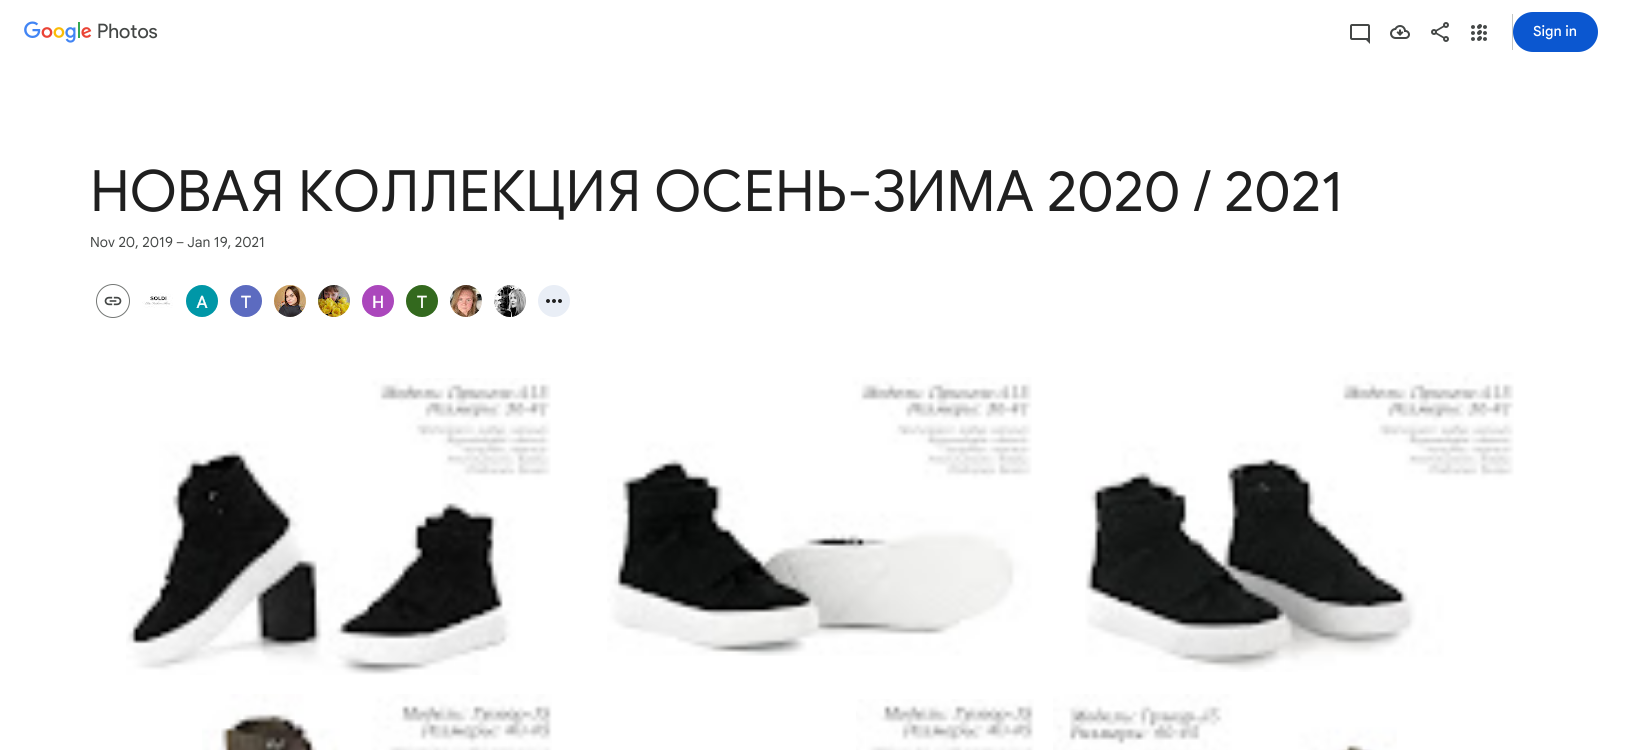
#include <cairo.h>
#include <math.h>
#include <stddef.h>

static cairo_t *c;
static void C(unsigned color){cairo_set_source_rgb(c, (color >> 16) / 255.0, (color >> 8 & 255) / 255.0, (color & 255) / 255.0);}
static void F(const char *family, double size, int italic, int bold){cairo_select_font_face(c, family, italic ? CAIRO_FONT_SLANT_ITALIC : CAIRO_FONT_SLANT_NORMAL,bold ? CAIRO_FONT_WEIGHT_BOLD : CAIRO_FONT_WEIGHT_NORMAL);cairo_set_font_size(c, size);}
static void T(double x, double y, const char *s){cairo_move_to(c, x, y);cairo_show_text(c, s);}
static void R(double x, double y, double w, double h){cairo_rectangle(c, x, y, w, h);cairo_fill(c);}
static void Q(double x, double y, double w, double h, double r){cairo_new_sub_path(c);cairo_arc(c, x + w - r, y + h - r, r, 0, M_PI / 2);cairo_arc(c, x + r, y + h - r, r, M_PI / 2, M_PI);cairo_arc(c, x + r, y + r, r, M_PI, 1.5 * M_PI);cairo_arc(c, x + w - r, y + r, r, 1.5 * M_PI, 2 * M_PI);cairo_close_path(c);}
static void I(const char *path, double x, double y, double w, double h){cairo_surface_t *image = cairo_image_surface_create_from_png(path);cairo_save(c);cairo_set_source_surface(c, image, x, y);cairo_rectangle(c, x, y, w, h);cairo_fill(c);cairo_restore(c);cairo_surface_destroy(image);}
int main(void) {
cairo_surface_t *surface = cairo_image_surface_create(CAIRO_FORMAT_RGB24, 1634, 750);
c = cairo_create(surface);
cairo_font_options_t *options = cairo_font_options_create();
cairo_font_options_set_hint_metrics(options, CAIRO_HINT_METRICS_OFF);
cairo_font_options_set_hint_style(options, CAIRO_HINT_STYLE_NONE);
cairo_set_font_options(c, options);
cairo_set_miter_limit(c, 4);
C(0xffffff);
cairo_paint(c);
I("1.png",24,21,68,22);
F("Product Sans",20,0,0);
C(0x444746);
T(97,38,"Photos");
I("2.png",1350,24,20,20);
I("3.png",1390,25,20,14);
I("4.png",1431,22,18,20);
I("5.png",1478,24,4,16);
C(0xc4c7c5);
R(1512,14,1,36);
F("Google Sans",57,0,0);
C(0x1f1f1f);
T(90,211,"НОВАЯ КОЛЛЕКЦИЯ ОСЕНЬ-ЗИМА 2020 / 2021");
F("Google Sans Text",14,0,0);
C(0x444746);
T(90,247,"Nov 20, 2019 – Jan 19, 2021");
cairo_new_path(c);
cairo_arc(c,113,301,16.5,0,2 * M_PI);
C(0x747775);
cairo_set_line_width(c,1);
cairo_stroke(c);
I("6.png",104,296,18,10);
I("7.png",142,293,31,15);
I("8.png",186,285,32,32);
I("9.png",230,285,32,32);
I("10.png",274,285,32,32);
I("11.png",318,285,32,32);
I("12.png",362,285,32,32);
I("13.png",406,285,32,32);
I("14.png",450,285,32,32);
I("15.png",494,285,32,32);
C(0xe9eef6);
cairo_arc(c,554,301,16,0,2 * M_PI);
cairo_fill(c);
I("16.png",546,299,16,4);
I("17.png",126,378,425,297);
I("18.png",607,377,425,279);
I("19.png",1085,372,429,300);
I("20.png",202,694,350,56);
I("21.png",856,699,178,51);
I("22.png",1053,694,344,56);
I("23.png",1471,25,16,16);
C(0x0b57d0);
Q(1513,12,85,40,20);
cairo_fill(c);
F("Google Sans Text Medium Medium",14,0,0);
C(0xffffff);
T(1533,36,"Sign in");
cairo_surface_write_to_png(surface, "o.png");
cairo_font_options_destroy(options);
cairo_destroy(c);
cairo_surface_destroy(surface);
return 0;
}
